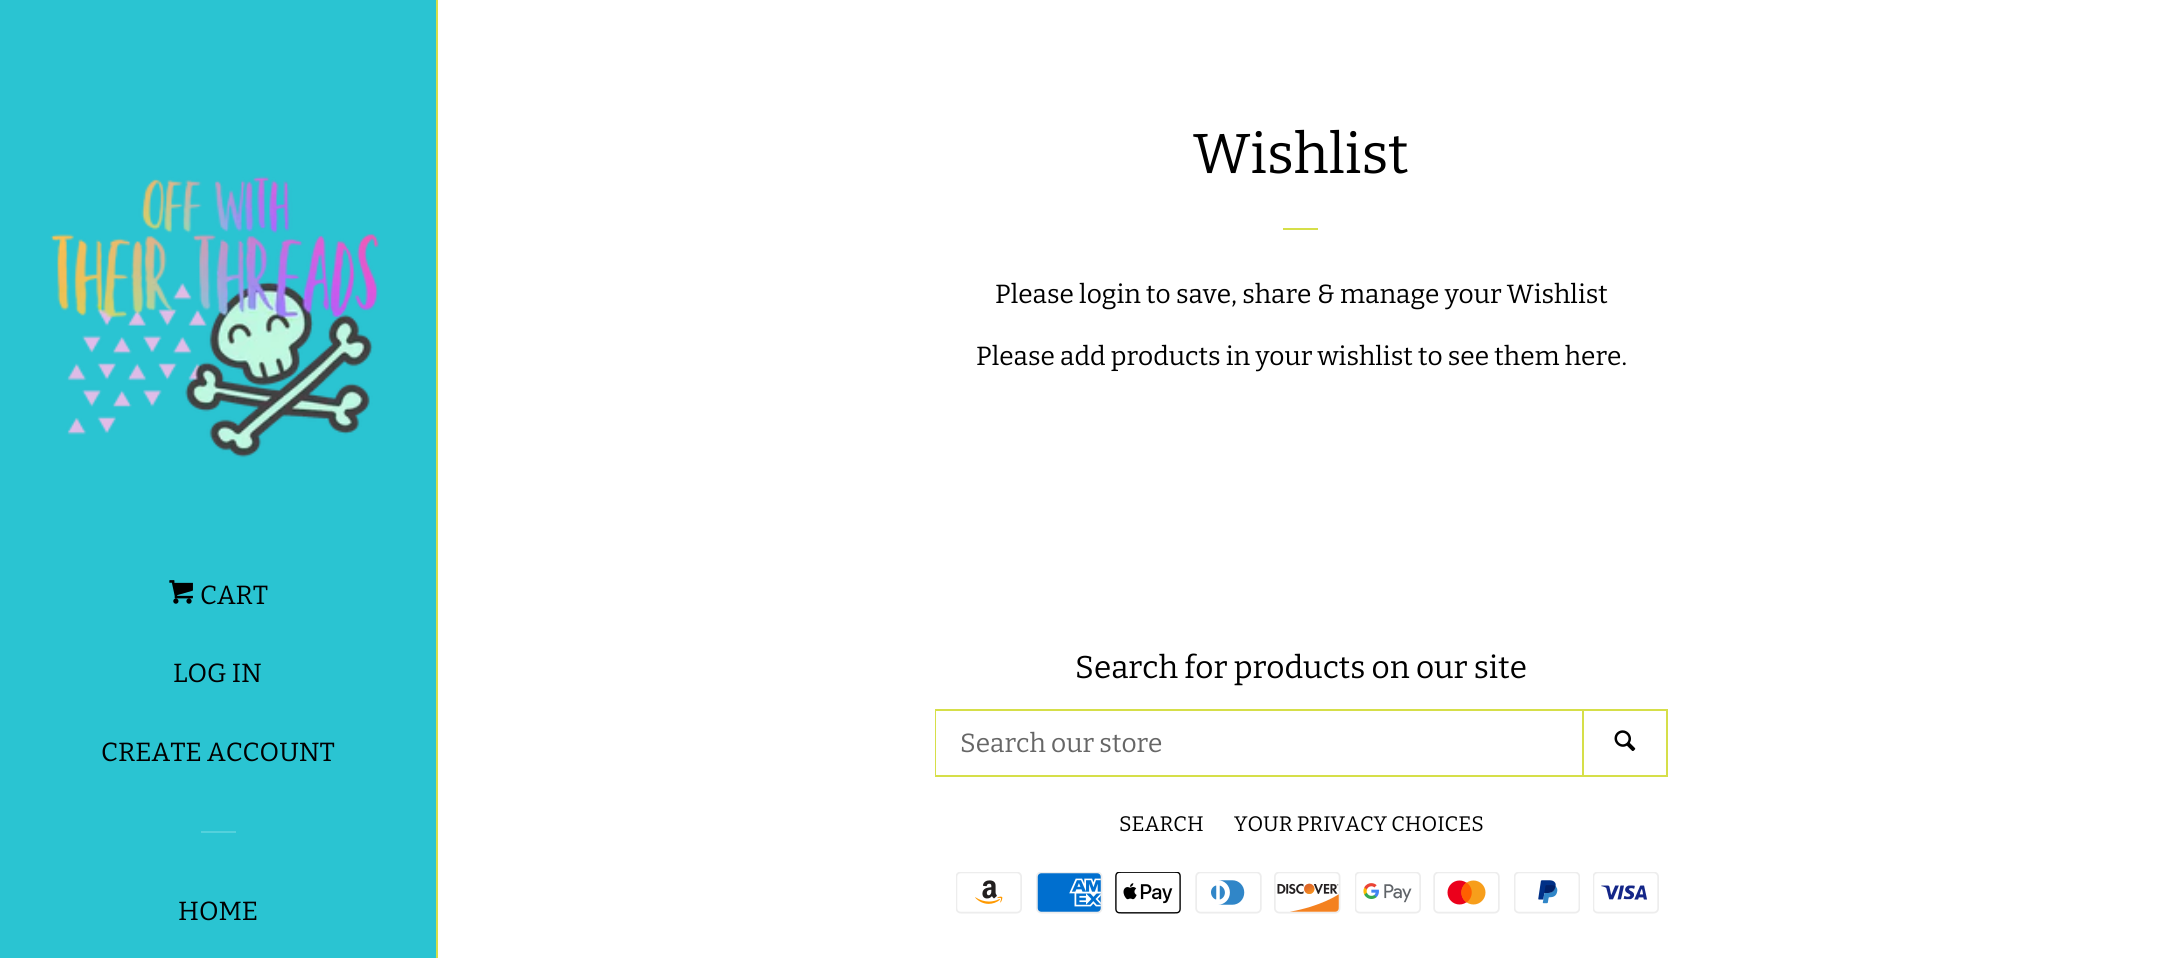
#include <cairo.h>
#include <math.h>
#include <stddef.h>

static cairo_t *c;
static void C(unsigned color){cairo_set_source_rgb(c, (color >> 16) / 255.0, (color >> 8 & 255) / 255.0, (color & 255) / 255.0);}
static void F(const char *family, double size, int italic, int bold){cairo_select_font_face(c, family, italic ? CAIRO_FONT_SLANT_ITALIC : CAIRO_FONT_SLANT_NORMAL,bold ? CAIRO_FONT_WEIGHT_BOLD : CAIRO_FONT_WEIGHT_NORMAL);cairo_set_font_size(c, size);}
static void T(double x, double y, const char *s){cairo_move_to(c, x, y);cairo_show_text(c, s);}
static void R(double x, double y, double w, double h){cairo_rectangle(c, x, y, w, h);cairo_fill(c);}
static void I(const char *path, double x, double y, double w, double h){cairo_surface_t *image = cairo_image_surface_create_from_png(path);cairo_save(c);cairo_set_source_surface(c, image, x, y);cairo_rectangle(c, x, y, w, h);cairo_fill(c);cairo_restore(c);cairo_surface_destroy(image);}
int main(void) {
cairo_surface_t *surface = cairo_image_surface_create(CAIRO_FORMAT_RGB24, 2164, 958);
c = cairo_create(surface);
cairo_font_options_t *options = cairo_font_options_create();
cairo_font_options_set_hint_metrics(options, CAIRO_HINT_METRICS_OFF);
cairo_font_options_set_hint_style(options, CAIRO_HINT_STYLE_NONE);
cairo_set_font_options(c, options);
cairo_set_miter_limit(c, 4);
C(0x2ac4d2);
cairo_paint(c);
C(0xd6df49);
R(436,0,2,958);
I("1.png",50,176,329,282);
I("2.png",169,580,24,24);
F("Bitter",26.25,0,0);
C(0x000000);
T(200,604,"CART");
T(173,682,"LOG IN");
T(101,761,"CREATE ACCOUNT");
C(0x53d1dc);
R(201,831,35,2);
C(0x000000);
T(178,920,"HOME");
C(0xffffff);
R(438,0,1726,958);
F("Bitter",56,0,0);
C(0x000000);
T(1193,173,"Wishlist");
C(0xd6df49);
R(1283,228,35,2);
F("Bitter",26.25,0,0);
C(0x000000);
T(995,303,"Please login to save, share & manage your Wishlist");
T(976,365,"Please add products in your wishlist to see them here.");
F("Bitter",31.5,0,0);
T(1075,678,"Search for products on our site");
cairo_rectangle(c,936,710,731,66);
C(0xd6df49);
cairo_stroke(c);
C(0xffffff);
R(936,711,1,64);
C(0xd6df49);
R(1582,711,2,64);
F("Bitter",26.25,0,0);
C(0x666666);
T(960,752,"Search our store");
I("3.png",1614,730,22,21);
F("Bitter",21,0,0);
C(0x000000);
T(1119,831,"SEARCH");
T(1234,831,"YOUR PRIVACY CHOICES");
I("4.png",956,872,66,42);
I("5.png",1036,872,67,42);
I("6.png",1115,872,66,42);
I("7.png",1195,872,67,42);
I("8.png",1274,872,67,42);
I("9.png",1355,872,66,42);
I("10.png",1433,872,67,42);
I("11.png",1514,872,66,42);
I("12.png",1593,872,66,42);
cairo_surface_write_to_png(surface, "o.png");
cairo_font_options_destroy(options);
cairo_destroy(c);
cairo_surface_destroy(surface);
return 0;
}
